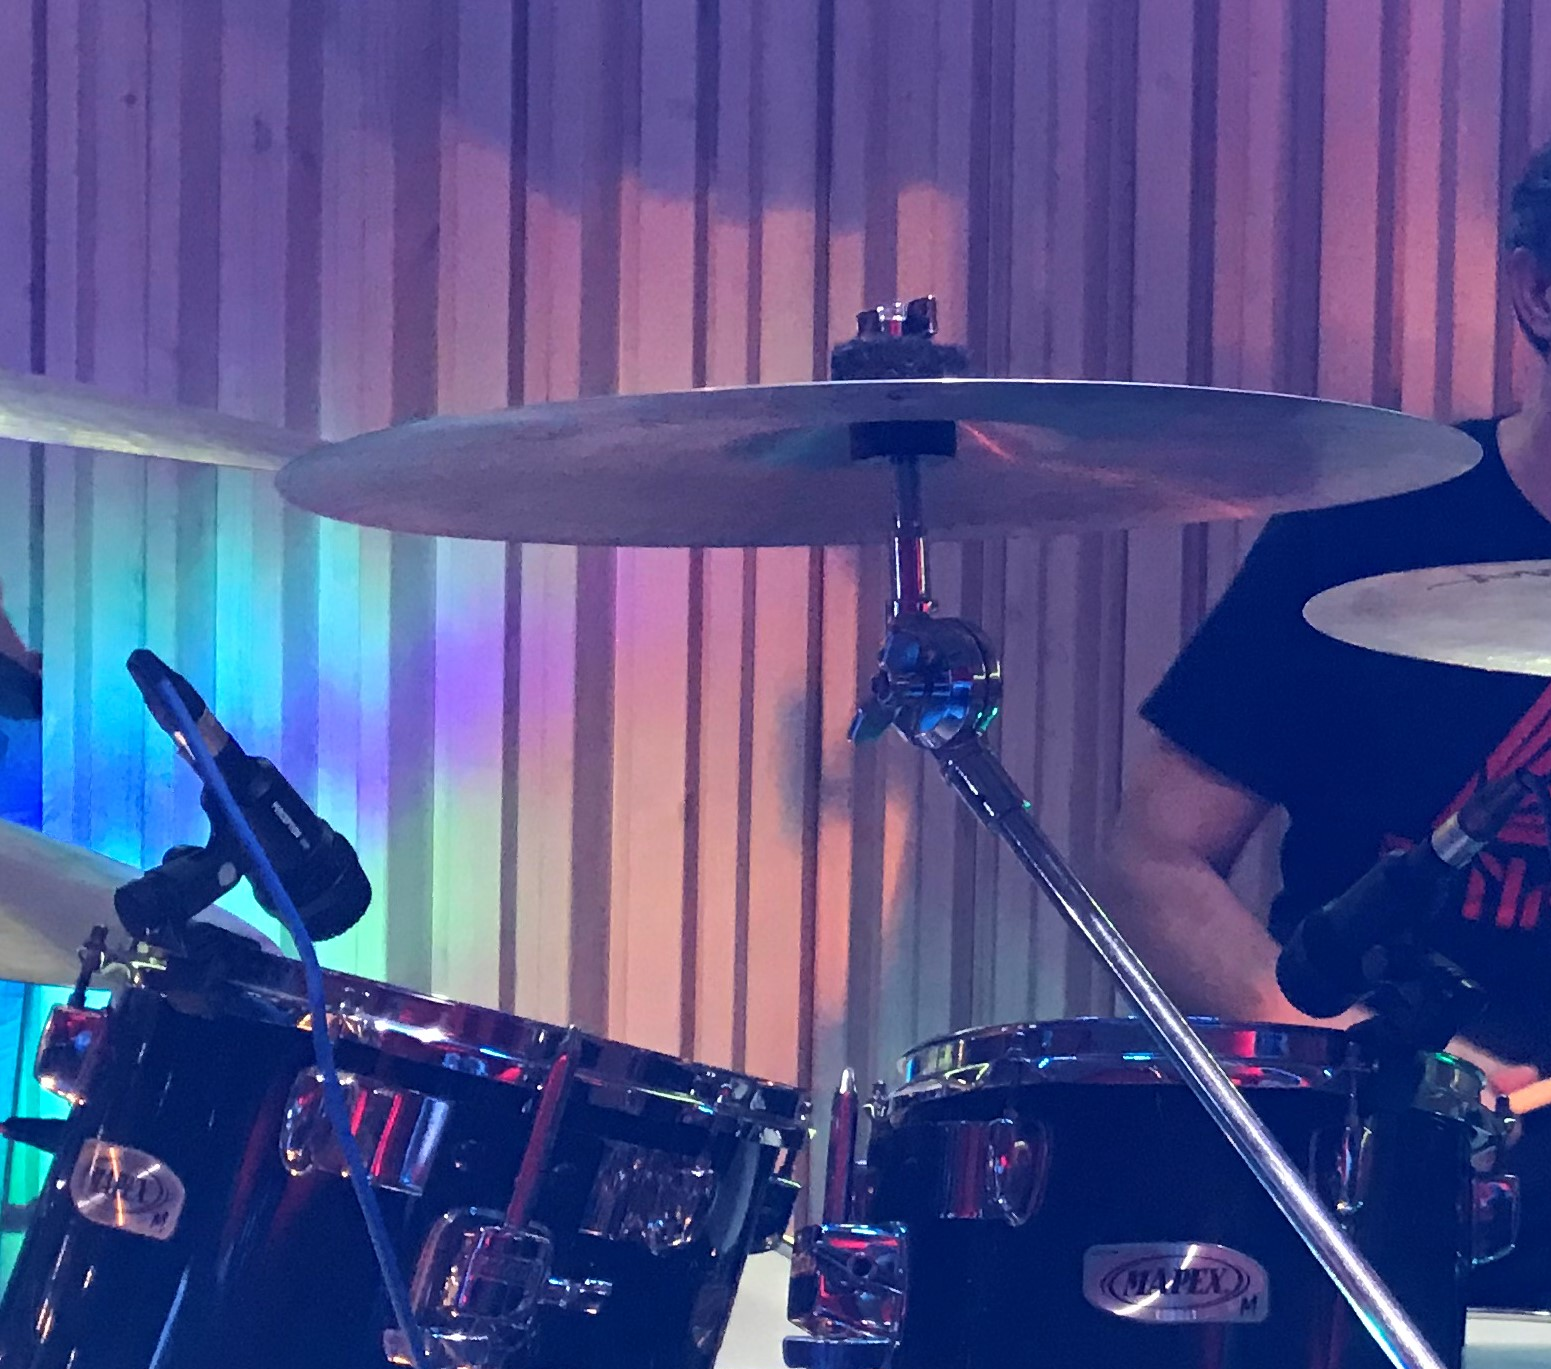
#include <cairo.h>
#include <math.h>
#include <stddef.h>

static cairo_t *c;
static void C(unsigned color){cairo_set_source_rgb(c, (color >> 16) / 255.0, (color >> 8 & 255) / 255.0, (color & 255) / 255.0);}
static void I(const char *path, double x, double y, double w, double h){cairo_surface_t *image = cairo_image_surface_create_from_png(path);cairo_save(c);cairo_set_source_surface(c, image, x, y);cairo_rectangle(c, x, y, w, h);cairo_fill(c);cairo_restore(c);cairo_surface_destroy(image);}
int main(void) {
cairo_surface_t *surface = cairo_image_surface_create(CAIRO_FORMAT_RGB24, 1551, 1369);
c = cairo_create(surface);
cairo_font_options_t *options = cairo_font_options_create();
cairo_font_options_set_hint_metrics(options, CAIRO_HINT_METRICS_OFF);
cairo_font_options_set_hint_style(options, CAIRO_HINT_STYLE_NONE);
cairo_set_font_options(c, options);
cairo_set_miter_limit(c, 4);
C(0xffffff);
cairo_paint(c);
I("1.png",0,0,1551,1369);
cairo_surface_write_to_png(surface, "o.png");
cairo_font_options_destroy(options);
cairo_destroy(c);
cairo_surface_destroy(surface);
return 0;
}
